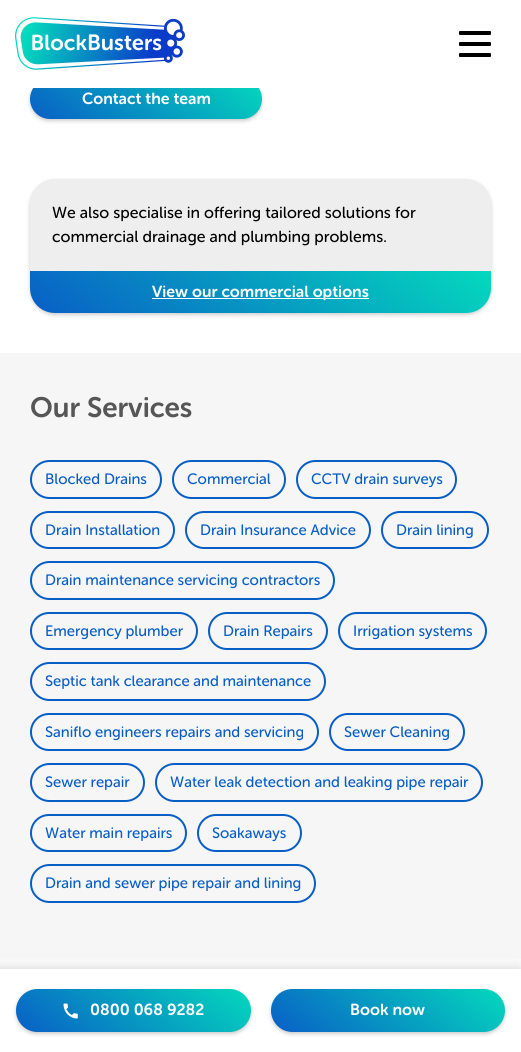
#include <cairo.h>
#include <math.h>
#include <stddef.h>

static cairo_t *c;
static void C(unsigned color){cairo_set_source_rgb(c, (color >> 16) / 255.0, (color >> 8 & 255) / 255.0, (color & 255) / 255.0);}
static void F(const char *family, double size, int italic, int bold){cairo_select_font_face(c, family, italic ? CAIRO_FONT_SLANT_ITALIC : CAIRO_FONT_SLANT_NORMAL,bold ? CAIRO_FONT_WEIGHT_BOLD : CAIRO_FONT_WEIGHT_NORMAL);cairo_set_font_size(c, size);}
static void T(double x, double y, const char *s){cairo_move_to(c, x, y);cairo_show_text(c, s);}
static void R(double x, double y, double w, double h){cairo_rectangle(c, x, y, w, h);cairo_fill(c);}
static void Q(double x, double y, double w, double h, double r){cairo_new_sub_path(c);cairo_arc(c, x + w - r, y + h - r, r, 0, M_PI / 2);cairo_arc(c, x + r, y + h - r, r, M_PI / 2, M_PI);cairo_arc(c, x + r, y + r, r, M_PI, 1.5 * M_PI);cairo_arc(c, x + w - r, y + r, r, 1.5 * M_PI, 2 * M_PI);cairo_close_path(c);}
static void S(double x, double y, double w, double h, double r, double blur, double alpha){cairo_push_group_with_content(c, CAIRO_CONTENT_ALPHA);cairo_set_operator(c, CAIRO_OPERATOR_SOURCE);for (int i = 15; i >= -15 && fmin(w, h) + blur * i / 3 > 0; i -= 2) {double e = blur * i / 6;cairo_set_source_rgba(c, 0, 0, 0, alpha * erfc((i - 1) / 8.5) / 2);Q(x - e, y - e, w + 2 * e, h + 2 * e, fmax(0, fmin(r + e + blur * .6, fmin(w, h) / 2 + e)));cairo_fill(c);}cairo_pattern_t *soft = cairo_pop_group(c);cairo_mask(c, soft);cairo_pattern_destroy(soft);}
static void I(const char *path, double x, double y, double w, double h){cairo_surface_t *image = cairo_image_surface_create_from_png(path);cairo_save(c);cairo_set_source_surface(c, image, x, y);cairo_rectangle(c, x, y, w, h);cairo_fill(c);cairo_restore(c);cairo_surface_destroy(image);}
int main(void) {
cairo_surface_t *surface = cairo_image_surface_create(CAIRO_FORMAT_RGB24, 521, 1052);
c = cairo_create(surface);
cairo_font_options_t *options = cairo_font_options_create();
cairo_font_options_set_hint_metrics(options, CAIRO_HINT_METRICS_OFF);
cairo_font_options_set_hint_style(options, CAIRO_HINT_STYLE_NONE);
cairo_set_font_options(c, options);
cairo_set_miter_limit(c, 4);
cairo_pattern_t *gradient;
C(0xffffff);
cairo_paint(c);
C(0x000000);
S(30,81,232,40,20,2,.2);
gradient = cairo_pattern_create_linear(92,168,200,30);
cairo_pattern_add_color_stop_rgba(gradient,0,0.035,0.369,0.776,1);
cairo_pattern_add_color_stop_rgba(gradient,1,0.016,0.851,0.741,1);
cairo_set_source(c,gradient);
cairo_pattern_destroy(gradient);
Q(30,79,232,40,20);
cairo_fill(c);
C(0xffffff);
R(31,78,230,10);
I("1.png",15,17,170,53);
C(0x000000);
Q(459,31,32,4,1);
cairo_fill(c);
Q(459,42,32,4,1);
cairo_fill(c);
Q(459,53,32,4,1);
cairo_fill(c);
F("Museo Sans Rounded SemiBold",16,0,0);
C(0xffffff);
T(82,104,"Contact the team");
C(0x000000);
S(30,181,461,134,25,2,.2);
C(0xeeeeee);
Q(30,179,461,134,25);
cairo_fill(c);
F("Museo Sans Rounded",16,0,0);
C(0x000000);
T(52,218,"We also specialise in offering tailored solutions for");
T(52,242,"commercial drainage and plumbing problems.");
gradient = cairo_pattern_create_linear(163,417,358,167);
cairo_pattern_add_color_stop_rgba(gradient,0,0.035,0.369,0.776,1);
cairo_pattern_add_color_stop_rgba(gradient,1,0.016,0.851,0.741,1);
cairo_set_source(c,gradient);
cairo_pattern_destroy(gradient);
cairo_new_path(c);
cairo_move_to(c,30,271);
cairo_line_to(c,491,271);
cairo_line_to(c,491,288);
cairo_curve_to(c,491,302,480,313,466,313);
cairo_line_to(c,55,313);
cairo_curve_to(c,41,313,30,302,30,288);
cairo_close_path(c);
cairo_fill(c);
C(0xffffff);
R(152,298,217,1);
F("Museo Sans Rounded SemiBold",16,0,0);
T(152,297,"View our commercial options");
C(0xf6f6f6);
R(0,353,521,606);
F("Museo Sans Rounded SemiBold",28,0,0);
C(0x565656);
T(30,417,"Our Services");
Q(31,461,130,37,18.5);
C(0x095ec6);
cairo_stroke(c);
F("Museo Sans Rounded",15,0,0);
T(45,484,"Blocked Drains");
Q(173,461,112,37,18.5);
cairo_stroke(c);
T(187,484,"Commercial");
Q(297,461,159,37,18.5);
cairo_stroke(c);
T(311,484,"CCTV drain surveys");
Q(31,512,143,36,18);
cairo_stroke(c);
T(45,535,"Drain Installation");
Q(186,512,184,36,18);
cairo_stroke(c);
T(200,535,"Drain Insurance Advice");
Q(382,512,106,36,18);
cairo_stroke(c);
T(396,535,"Drain lining");
Q(31,562,303,37,18.5);
cairo_stroke(c);
T(45,585,"Drain maintenance servicing contractors");
Q(31,613,166,36,18);
cairo_stroke(c);
T(45,636,"Emergency plumber");
Q(209,613,118,36,18);
cairo_stroke(c);
T(223,636,"Drain Repairs");
Q(339,613,147,36,18);
cairo_stroke(c);
T(353,636,"Irrigation systems");
Q(31,663,294,37,18.5);
cairo_stroke(c);
T(45,686,"Septic tank clearance and maintenance");
Q(31,714,287,36,18);
cairo_stroke(c);
T(45,737,"Saniflo engineers repairs and servicing");
Q(330,714,134,36,18);
cairo_stroke(c);
T(344,737,"Sewer Cleaning");
Q(31,764,113,37,18.5);
cairo_stroke(c);
T(45,787,"Sewer repair");
Q(156,764,326,37,18.5);
cairo_stroke(c);
T(170,787,"Water leak detection and leaking pipe repair");
Q(31,815,155,36,18);
cairo_stroke(c);
T(45,838,"Water main repairs");
Q(198,815,103,36,18);
cairo_stroke(c);
T(212,838,"Soakaways");
Q(31,865,284,37,18.5);
cairo_stroke(c);
T(45,888,"Drain and sewer pipe repair and lining");
C(0xf9f9f9);
R(0,959,521,10);
C(0x000000);
S(-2,970,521,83,0,5,.2);
C(0xffffff);
R(0,969,521,83);
C(0x000000);
S(16,991,235,43,21.5,2,.2);
gradient = cairo_pattern_create_linear(79,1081,188,940);
cairo_pattern_add_color_stop_rgba(gradient,0,0.035,0.369,0.776,1);
cairo_pattern_add_color_stop_rgba(gradient,1,0.016,0.851,0.741,1);
cairo_set_source(c,gradient);
cairo_pattern_destroy(gradient);
Q(16,989,235,43,21.5);
cairo_fill(c);
I("2.png",63,1003,15,16);
F("Museo Sans Rounded SemiBold",16,0,0);
C(0xffffff);
T(90,1015,"0800 068 9282");
C(0x000000);
S(271,991,234,43,21.5,2,.2);
gradient = cairo_pattern_create_linear(333,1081,443,940);
cairo_pattern_add_color_stop_rgba(gradient,0,0.035,0.369,0.776,1);
cairo_pattern_add_color_stop_rgba(gradient,1,0.016,0.851,0.741,1);
cairo_set_source(c,gradient);
cairo_pattern_destroy(gradient);
Q(271,989,234,43,21.5);
cairo_fill(c);
C(0xffffff);
T(350,1015,"Book now");
cairo_surface_write_to_png(surface, "o.png");
cairo_font_options_destroy(options);
cairo_destroy(c);
cairo_surface_destroy(surface);
return 0;
}
